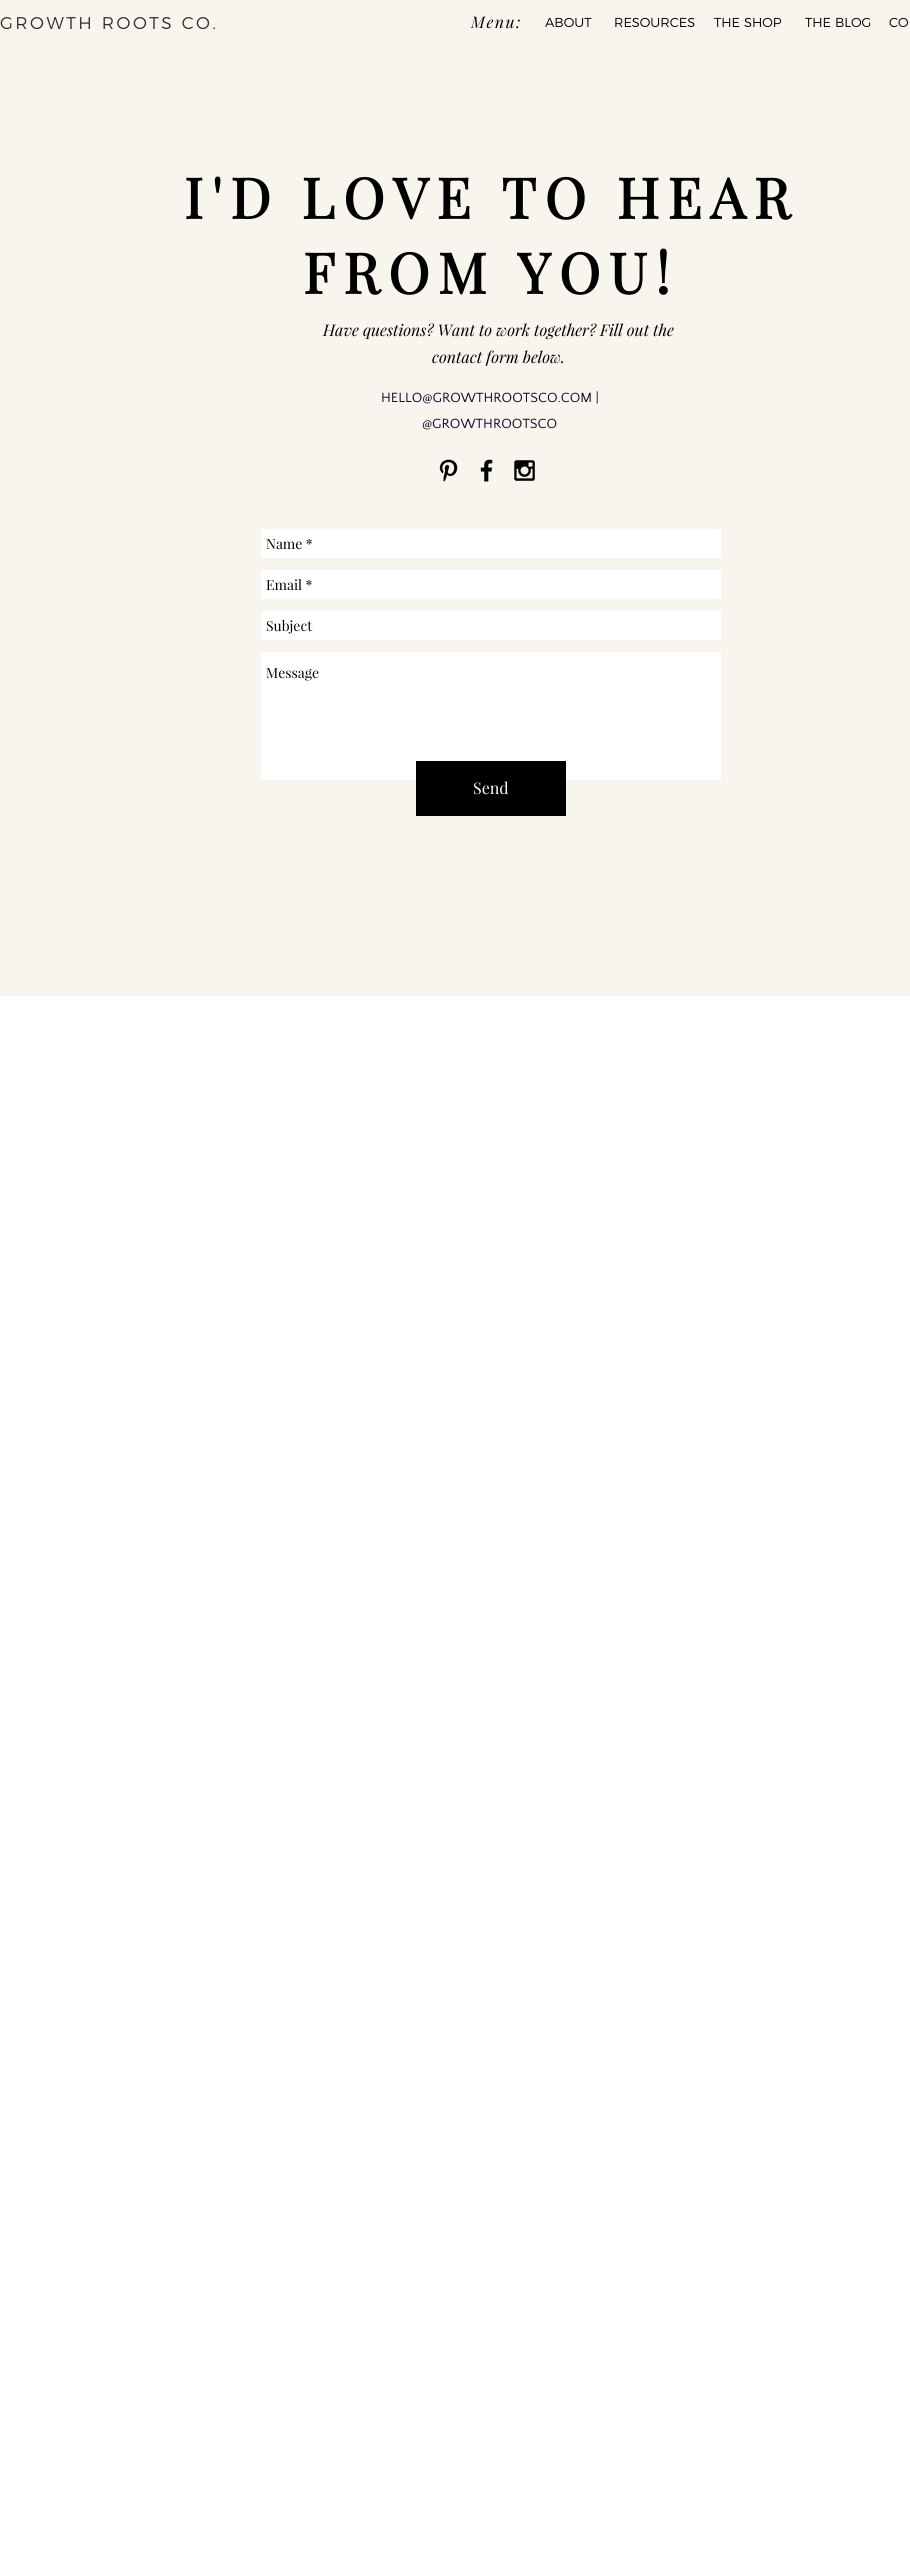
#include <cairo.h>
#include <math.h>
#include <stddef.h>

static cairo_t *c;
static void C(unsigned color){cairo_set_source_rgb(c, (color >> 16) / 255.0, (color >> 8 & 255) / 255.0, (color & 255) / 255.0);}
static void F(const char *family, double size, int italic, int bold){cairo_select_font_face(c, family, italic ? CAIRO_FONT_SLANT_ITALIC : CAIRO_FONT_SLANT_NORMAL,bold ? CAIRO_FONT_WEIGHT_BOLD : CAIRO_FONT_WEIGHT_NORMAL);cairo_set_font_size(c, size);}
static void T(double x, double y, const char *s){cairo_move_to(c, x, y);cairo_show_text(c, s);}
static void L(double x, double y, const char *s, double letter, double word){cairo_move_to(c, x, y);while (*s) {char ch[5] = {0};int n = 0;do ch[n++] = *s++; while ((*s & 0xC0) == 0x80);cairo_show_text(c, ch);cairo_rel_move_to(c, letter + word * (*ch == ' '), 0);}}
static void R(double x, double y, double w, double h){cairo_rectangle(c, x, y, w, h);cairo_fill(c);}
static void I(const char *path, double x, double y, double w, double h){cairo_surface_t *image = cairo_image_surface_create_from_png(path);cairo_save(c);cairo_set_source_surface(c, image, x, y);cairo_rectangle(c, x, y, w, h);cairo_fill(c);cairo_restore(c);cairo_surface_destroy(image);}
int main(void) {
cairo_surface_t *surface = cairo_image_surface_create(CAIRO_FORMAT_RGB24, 910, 2571);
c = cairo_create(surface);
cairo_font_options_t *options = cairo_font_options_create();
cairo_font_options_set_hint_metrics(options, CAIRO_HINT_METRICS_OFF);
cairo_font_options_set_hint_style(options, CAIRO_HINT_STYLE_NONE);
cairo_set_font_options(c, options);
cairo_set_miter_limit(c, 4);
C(0xffffff);
cairo_paint(c);
C(0xf7f5ed);
R(0,0,910,996);
F("Montserrat Light",17,0,0);
C(0x2f2e2e);
L(0,29,"GROWTH ROOTS CO.",2.5,0);
F("Playfair Display",16,1,0);
C(0x000000);
L(471,28,"Menu:",1.5,0);
F("Montserrat Light",13,0,0);
T(545,27,"ABOUT");
T(614,27,"RESOURCES");
T(714,27,"THE SHOP");
T(805,27,"THE BLOG");
T(889,27,"CO");
F("Playfair Display",56,0,1);
L(184,219,"I'D LOVE TO HEAR",8.4,0);
L(303,294,"FROM YOU!",8.4,0);
F("Playfair Display",16,1,0);
T(323,336,"Have questions? Want to work together? Fill out the");
T(432,363,"contact form below.");
F("Quattrocento Sans",14,0,0);
C(0x110a2b);
T(381,402,"HELLO@GROWTHROOTSCO.COM |");
T(422,428,"@GROWTHROOTSCO");
I("1.png",439,459,19,23);
I("2.png",480,459,13,23);
I("3.png",514,460,21,21);
C(0xffffff);
R(261,529,460,29);
F("Playfair Display",14,0,0);
C(0x000000);
T(266,549,"Name *");
C(0xffffff);
R(261,570,460,29);
C(0x000000);
T(266,590,"Email *");
C(0xffffff);
R(261,611,460,29);
C(0x000000);
T(266,631,"Subject");
C(0xffffff);
R(261,652,460,128);
C(0x000000);
T(266,678,"Message");
R(416,761,150,55);
F("Playfair Display",16,0,0);
C(0xffffff);
T(473,794,"Send");
cairo_surface_write_to_png(surface, "o.png");
cairo_font_options_destroy(options);
cairo_destroy(c);
cairo_surface_destroy(surface);
return 0;
}
